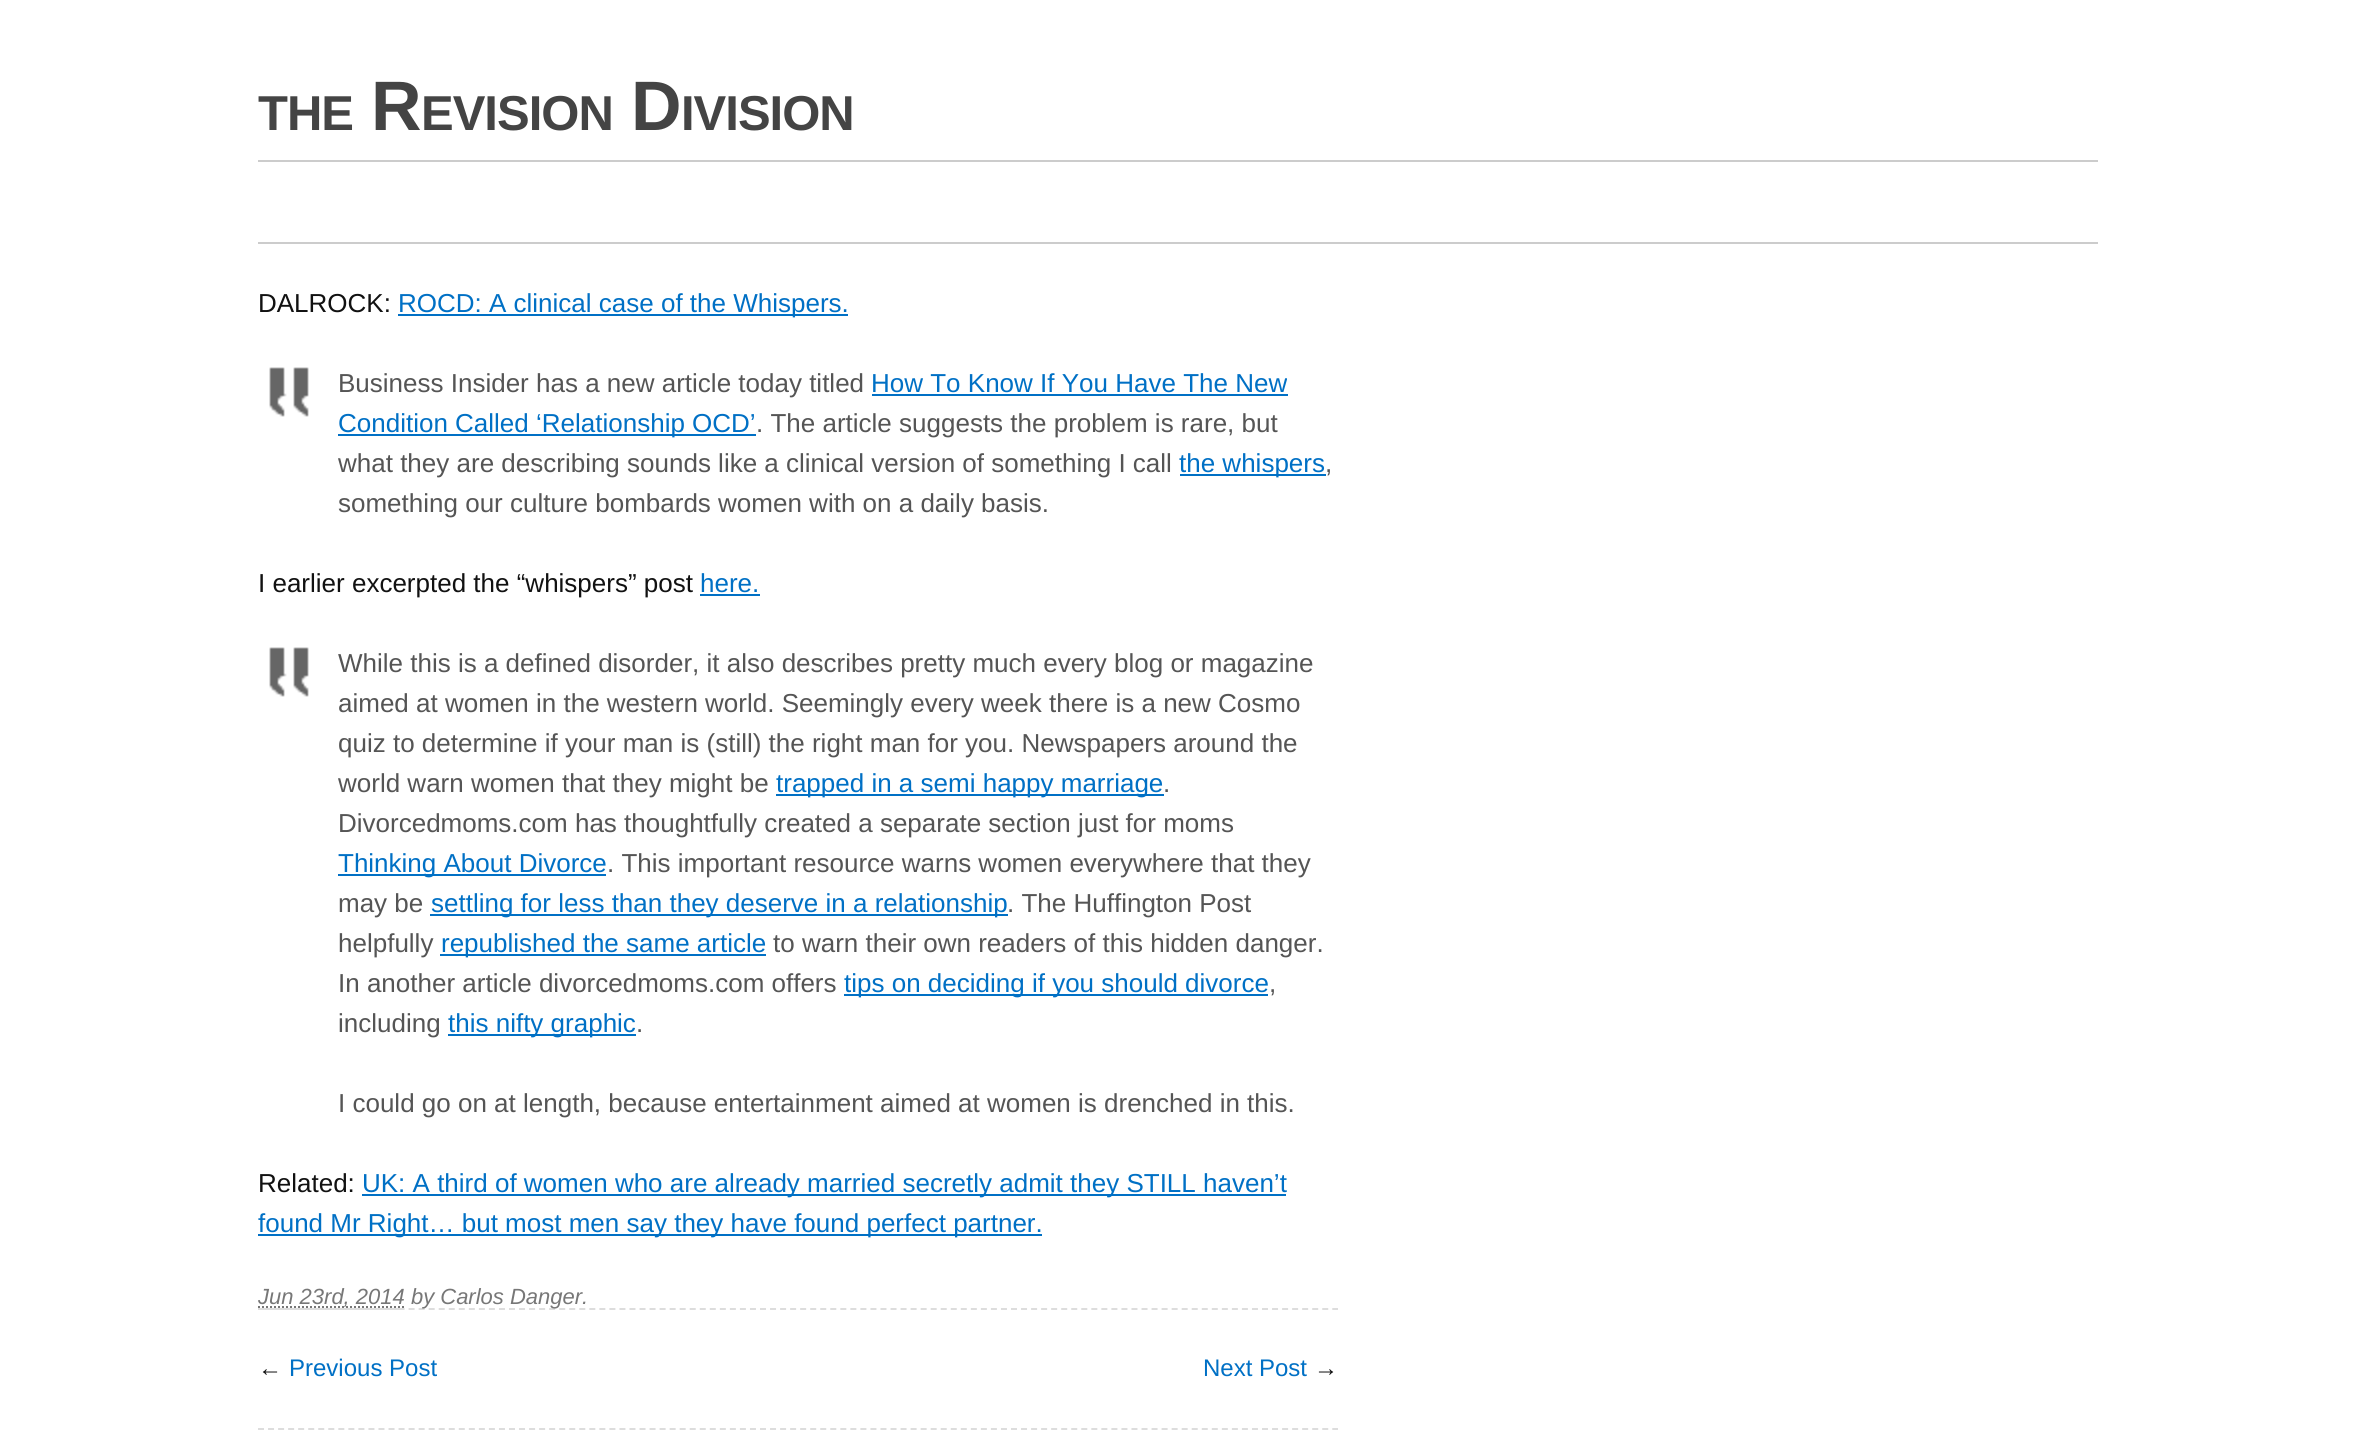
#include <cairo.h>
#include <math.h>
#include <stddef.h>

static cairo_t *c;
static void C(unsigned color){cairo_set_source_rgb(c, (color >> 16) / 255.0, (color >> 8 & 255) / 255.0, (color & 255) / 255.0);}
static void F(const char *family, double size, int italic, int bold){cairo_select_font_face(c, family, italic ? CAIRO_FONT_SLANT_ITALIC : CAIRO_FONT_SLANT_NORMAL,bold ? CAIRO_FONT_WEIGHT_BOLD : CAIRO_FONT_WEIGHT_NORMAL);cairo_set_font_size(c, size);}
static void T(double x, double y, const char *s){cairo_move_to(c, x, y);cairo_show_text(c, s);}
static void L(double x, double y, const char *s, double letter, double word){cairo_move_to(c, x, y);while (*s) {char ch[5] = {0};int n = 0;do ch[n++] = *s++; while ((*s & 0xC0) == 0x80);cairo_show_text(c, ch);cairo_rel_move_to(c, letter + word * (*ch == ' '), 0);}}
static void R(double x, double y, double w, double h){cairo_rectangle(c, x, y, w, h);cairo_fill(c);}
static void I(const char *path, double x, double y, double w, double h){cairo_surface_t *image = cairo_image_surface_create_from_png(path);cairo_save(c);cairo_set_source_surface(c, image, x, y);cairo_rectangle(c, x, y, w, h);cairo_fill(c);cairo_restore(c);cairo_surface_destroy(image);}
int main(void) {
cairo_surface_t *surface = cairo_image_surface_create(CAIRO_FORMAT_RGB24, 2359, 1441);
c = cairo_create(surface);
cairo_font_options_t *options = cairo_font_options_create();
cairo_font_options_set_hint_metrics(options, CAIRO_HINT_METRICS_OFF);
cairo_font_options_set_hint_style(options, CAIRO_HINT_STYLE_NONE);
cairo_set_font_options(c, options);
cairo_set_miter_limit(c, 4);
C(0xffffff);
cairo_paint(c);
F("Liberation Sans",49,0,1);
C(0x444444);
L(258,130,"THE",-1,0);
F("Liberation Sans",70,0,1);
L(371,130,"R",-1,0);
F("Liberation Sans",49,0,1);
L(421,130,"EVISION",-1,0);
F("Liberation Sans",70,0,1);
L(631,130,"D",-1,0);
F("Liberation Sans",49,0,1);
L(681,130,"IVISION",-1,0);
C(0xcccccc);
R(258,160,1840,2);
R(258,242,1840,2);
cairo_new_path(c);
cairo_move_to(c,258,1309);
cairo_line_to(c,1338,1309);
C(0xdddddd);
cairo_set_dash(c,(double[]){6,4.04},2,0);
cairo_stroke(c);
F("Liberation Sans",26,0,0);
C(0x111111);
T(258,312,"DALROCK:");
C(0x0070c5);
R(398,314,450,2);
T(398,312,"ROCD: A clinical case of the Whispers.");
I("1.png",269,367,40,50);
C(0x555555);
T(338,392,"Business Insider has a new article today titled");
C(0x0070c5);
T(871,392,"How To Know If You Have The New");
R(872,394,416,2);
R(338,434,418,2);
T(338,432,"Condition Called ‘Relationship OCD’");
C(0x555555);
T(756,432,". The article suggests the problem is rare, but");
T(338,472,"what they are describing sounds like a clinical version of something I call");
C(0x0070c5);
R(1180,474,146,2);
T(1179,472,"the whispers");
C(0x555555);
T(1325,472,",");
T(338,512,"something our culture bombards women with on a daily basis.");
C(0x111111);
T(258,592,"I earlier excerpted the “whispers” post");
C(0x0070c5);
T(700,592,"here.");
R(700,594,60,2);
I("1.png",269,647,40,50);
C(0x555555);
T(338,672,"While this is a defined disorder, it also describes pretty much every blog or magazine");
T(338,712,"aimed at women in the western world. Seemingly every week there is a new Cosmo");
T(338,752,"quiz to determine if your man is (still) the right man for you. Newspapers around the");
T(338,792,"world warn women that they might be");
C(0x0070c5);
R(776,794,388,2);
T(776,792,"trapped in a semi happy marriage");
C(0x555555);
T(1163,792,".");
T(338,832,"Divorcedmoms.com has thoughtfully created a separate section just for moms");
C(0x0070c5);
R(338,874,268,2);
T(338,872,"Thinking About Divorce");
C(0x555555);
T(607,872,". This important resource warns women everywhere that they");
T(338,912,"may be");
C(0x0070c5);
R(430,914,578,2);
T(431,912,"settling for less than they deserve in a relationship");
C(0x555555);
T(1007,912,". The Huffington Post");
T(338,952,"helpfully");
C(0x0070c5);
R(440,954,326,2);
T(441,952,"republished the same article");
C(0x555555);
T(773,952,"to warn their own readers of this hidden danger.");
T(338,992,"In another article divorcedmoms.com offers");
C(0x0070c5);
R(844,994,424,2);
T(844,992,"tips on deciding if you should divorce");
C(0x555555);
T(1269,992,",");
T(338,1032,"including");
C(0x0070c5);
R(448,1034,188,2);
T(448,1032,"this nifty graphic");
C(0x555555);
T(636,1032,".");
T(338,1112,"I could go on at length, because entertainment aimed at women is drenched in this.");
C(0x111111);
T(258,1192,"Related:");
C(0x0070c5);
R(362,1194,924,2);
T(362,1192,"UK: A third of women who are already married secretly admit they STILL haven’t");
R(258,1234,784,2);
T(258,1232,"found Mr Right… but most men say they have found perfect partner.");
C(0xdddddd);
R(258,1308,146,2);
cairo_new_path(c);
cairo_move_to(c,258,1307);
cairo_line_to(c,405,1307);
C(0x777777);
cairo_set_dash(c,(double[]){2,2},2,0);
cairo_stroke(c);
F("Liberation Sans",22,1,0);
T(258,1304,"Jun 23rd, 2014 by Carlos Danger.");
cairo_new_path(c);
cairo_move_to(c,258,1429);
cairo_line_to(c,1338,1429);
C(0xdddddd);
cairo_set_dash(c,(double[]){6,4.04},2,0);
cairo_stroke(c);
F("Liberation Sans",24,0,0);
C(0x111111);
T(258,1376,"←");
C(0x0070c5);
T(289,1376,"Previous Post");
T(1203,1376,"Next Post");
C(0x111111);
T(1314,1376,"→");
cairo_surface_write_to_png(surface, "o.png");
cairo_font_options_destroy(options);
cairo_destroy(c);
cairo_surface_destroy(surface);
return 0;
}
